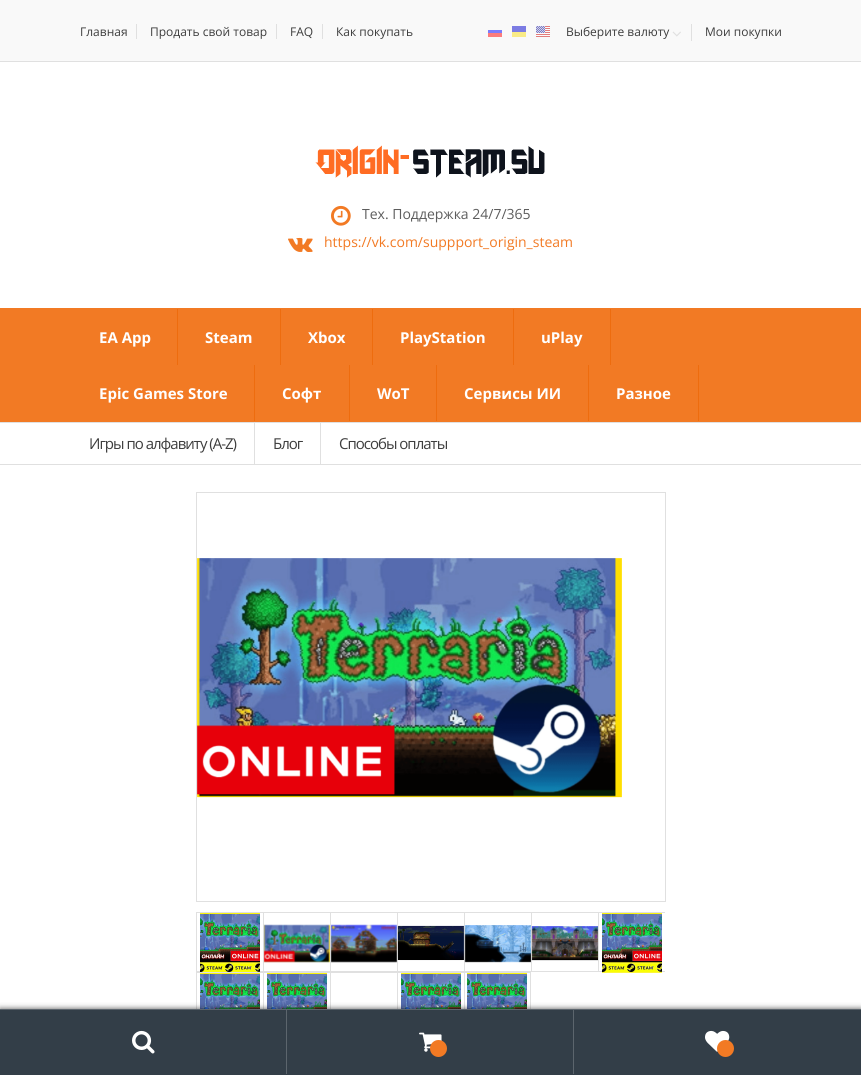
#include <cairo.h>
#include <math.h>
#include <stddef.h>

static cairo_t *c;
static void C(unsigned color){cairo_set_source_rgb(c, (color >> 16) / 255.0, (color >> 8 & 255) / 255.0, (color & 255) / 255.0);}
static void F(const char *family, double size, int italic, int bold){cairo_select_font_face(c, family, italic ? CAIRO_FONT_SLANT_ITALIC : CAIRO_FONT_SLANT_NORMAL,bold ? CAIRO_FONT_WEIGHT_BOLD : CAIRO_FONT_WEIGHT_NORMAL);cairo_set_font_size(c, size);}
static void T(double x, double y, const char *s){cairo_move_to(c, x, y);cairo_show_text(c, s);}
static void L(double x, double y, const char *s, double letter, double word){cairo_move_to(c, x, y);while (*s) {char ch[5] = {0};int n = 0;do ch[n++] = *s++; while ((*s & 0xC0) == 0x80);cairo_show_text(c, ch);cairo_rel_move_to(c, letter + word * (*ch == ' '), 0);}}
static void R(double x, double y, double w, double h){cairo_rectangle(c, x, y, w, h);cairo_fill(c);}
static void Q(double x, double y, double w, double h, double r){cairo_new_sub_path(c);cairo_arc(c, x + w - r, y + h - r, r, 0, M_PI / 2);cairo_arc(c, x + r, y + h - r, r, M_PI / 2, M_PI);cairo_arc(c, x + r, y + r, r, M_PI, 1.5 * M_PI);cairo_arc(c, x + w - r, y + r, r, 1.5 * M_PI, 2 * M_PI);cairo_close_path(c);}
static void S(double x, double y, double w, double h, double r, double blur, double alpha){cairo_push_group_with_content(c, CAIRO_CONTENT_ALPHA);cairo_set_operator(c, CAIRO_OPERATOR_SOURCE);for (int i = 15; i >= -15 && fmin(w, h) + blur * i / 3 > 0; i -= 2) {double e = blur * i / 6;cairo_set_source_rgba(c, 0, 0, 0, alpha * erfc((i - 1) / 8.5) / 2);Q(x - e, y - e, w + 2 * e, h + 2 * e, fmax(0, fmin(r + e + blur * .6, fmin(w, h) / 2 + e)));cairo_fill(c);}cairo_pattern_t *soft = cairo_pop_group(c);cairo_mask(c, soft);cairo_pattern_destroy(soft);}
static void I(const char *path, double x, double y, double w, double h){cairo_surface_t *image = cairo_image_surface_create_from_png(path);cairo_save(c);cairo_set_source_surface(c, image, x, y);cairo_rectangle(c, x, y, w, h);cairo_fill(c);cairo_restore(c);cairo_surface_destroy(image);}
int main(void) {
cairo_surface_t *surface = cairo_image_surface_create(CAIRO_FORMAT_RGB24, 861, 1075);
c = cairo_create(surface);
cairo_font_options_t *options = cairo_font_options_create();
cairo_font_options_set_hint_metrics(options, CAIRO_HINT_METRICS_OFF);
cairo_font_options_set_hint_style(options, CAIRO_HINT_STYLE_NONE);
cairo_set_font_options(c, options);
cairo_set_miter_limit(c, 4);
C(0xffffff);
cairo_paint(c);
C(0xf9f9f9);
R(0,0,861,61);
C(0xe0e0e0);
R(0,61,861,1);
R(136,24,1,15);
F("Open Sans",12,0,0);
C(0x3d3d3d);
T(80,36,"Главная");
C(0xe0e0e0);
R(276,24,1,15);
C(0x3d3d3d);
T(150,36,"Продать свой товар");
C(0xe0e0e0);
R(322,24,1,15);
C(0x3d3d3d);
T(290,36,"FAQ");
T(336,36,"Как покупать");
I("1.png",488,30,14,7);
I("2.png",512,26,14,11);
I("3.png",536,26,14,11);
C(0xe0e0e0);
R(691,24,1,17);
C(0x3d3d3d);
T(566,36,"Выберите валюту");
I("4.png",672,31,9,6);
T(705,36,"Мои покупки");
I("5.png",315,145,230,33);
I("6.png",331,205,20,21);
F("Open Sans",14,0,0);
C(0x5d5d5d);
T(362,219,"Тех. Поддержка 24/7/365");
I("7.png",288,237,25,15);
C(0xf27a24);
T(324,247,"https://vk.com/suppport_origin_steam");
R(0,308,861,114);
C(0xee6c0e);
R(177,309,1,56);
F("Open Sans",15,0,1);
C(0xffffff);
T(99,343,"EA App");
C(0xee6c0e);
R(280,309,1,56);
C(0xffffff);
T(205,343,"Steam");
C(0xee6c0e);
R(372,309,1,56);
C(0xffffff);
T(308,343,"Xbox");
C(0xee6c0e);
R(513,309,1,56);
C(0xffffff);
T(400,343,"PlayStation");
C(0xee6c0e);
R(610,309,1,56);
C(0xffffff);
T(541,343,"uPlay");
C(0xee6c0e);
R(254,365,1,56);
C(0xffffff);
T(99,399,"Epic Games Store");
C(0xee6c0e);
R(349,365,1,56);
C(0xffffff);
T(282,399,"Софт");
C(0xee6c0e);
R(436,365,1,56);
C(0xffffff);
T(377,399,"WoT");
C(0xee6c0e);
R(588,365,1,56);
C(0xffffff);
T(464,399,"Сервисы ИИ");
C(0xee6c0e);
R(698,365,1,56);
C(0xffffff);
T(616,399,"Разное");
C(0xe0e0e0);
R(0,422,861,1);
R(0,464,861,1);
R(254,423,1,41);
F("Open Sans",15,0,0);
C(0x3d3d3d);
L(89,449,"Игры по алфавиту (A-Z)",-1,0);
C(0xe0e0e0);
R(320,423,1,41);
C(0x3d3d3d);
L(273,449,"Блог",-1,0);
L(339,449,"Способы оплаты",-1,0);
cairo_rectangle(c,196.5,492.5,469,409);
C(0xe0e0e0);
cairo_set_line_width(c,1);
cairo_stroke(c);
I("8.png",197,558,425,240);
R(196,912,469,1);
R(196,971,469,1);
R(196,912,1,60);
I("9.png",200,913,60,59);
R(263,912,1,60);
I("10.png",263,924,67,39);
R(330,912,1,60);
I("11.png",330,924,67,39);
R(397,912,1,60);
I("12.png",397,925,67,36);
R(464,912,1,60);
I("13.png",464,925,67,38);
R(531,912,1,60);
I("14.png",531,926,67,35);
R(598,912,1,60);
I("15.png",602,913,60,60);
R(196,972,268,1);
R(196,972,1,37);
I("16.png",200,973,60,36);
R(263,972,1,37);
I("16.png",267,973,60,36);
R(330,972,1,37);
R(397,972,1,37);
I("16.png",401,973,60,36);
cairo_rectangle(c,464.5,972.5,66,59);
cairo_stroke(c);
I("16.png",467,973,60,36);
C(0x000000);
S(0,1009,861,66,0,3,.7);
C(0x333e48);
R(0,1010,861,65);
C(0x5c656d);
R(0,1009,861,1);
R(286,1010,1,64);
I("17.png",132,1030,23,24);
R(573,1010,1,64);
I("18.png",419,1032,23,20);
C(0xf27a24);
cairo_arc(c,438.5,1048.5,8.5,0,2 * M_PI);
cairo_fill(c);
I("19.png",705,1030,25,22);
cairo_arc(c,725.5,1048.5,8.5,0,2 * M_PI);
cairo_fill(c);
cairo_surface_write_to_png(surface, "o.png");
cairo_font_options_destroy(options);
cairo_destroy(c);
cairo_surface_destroy(surface);
return 0;
}
